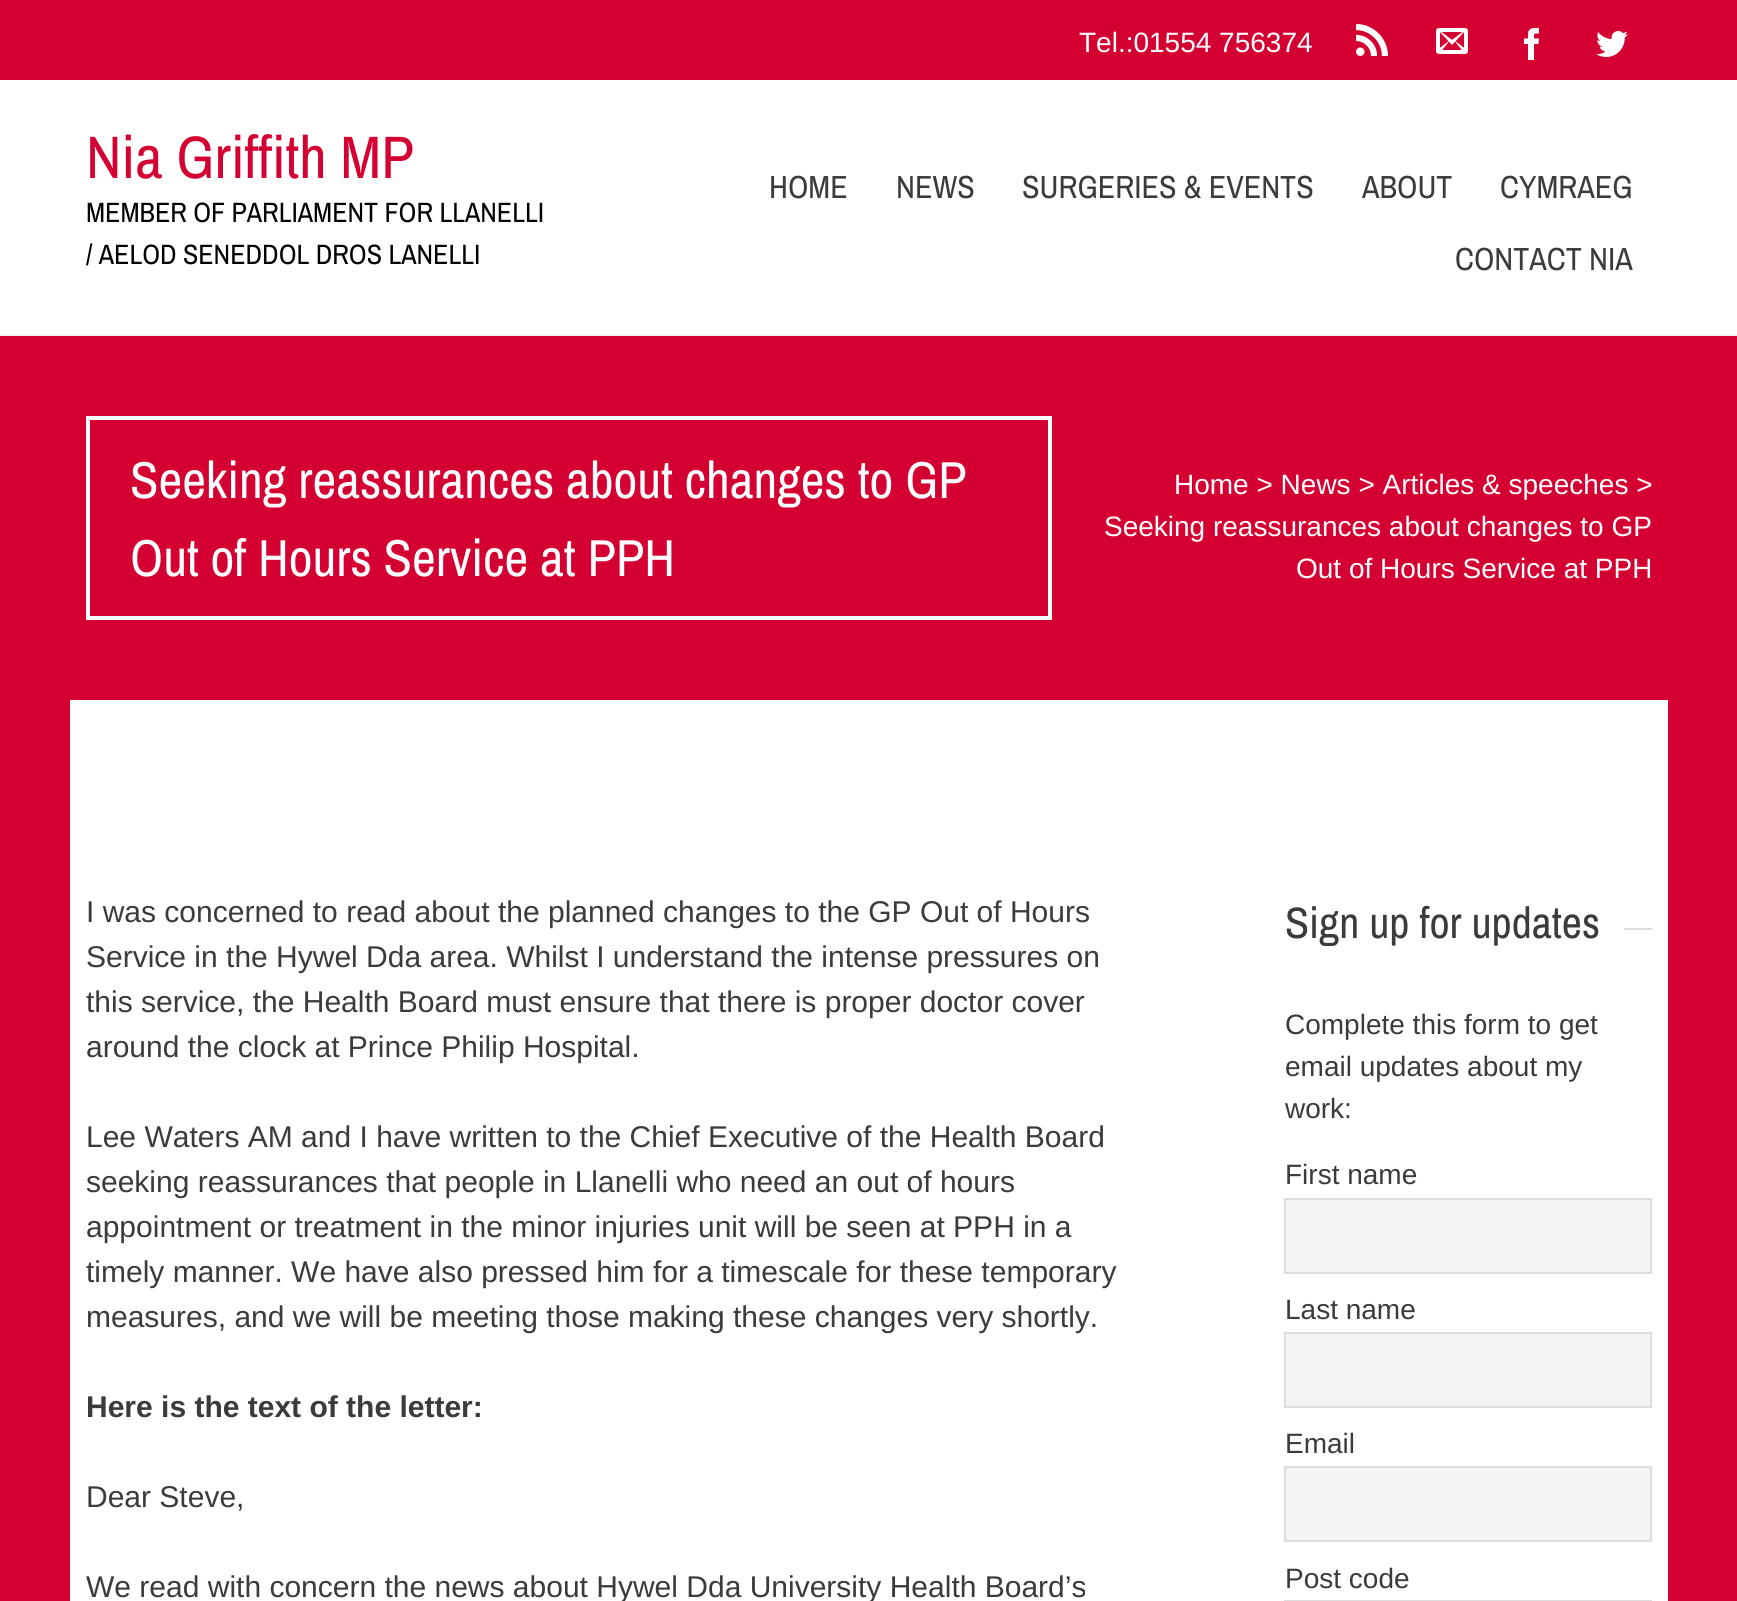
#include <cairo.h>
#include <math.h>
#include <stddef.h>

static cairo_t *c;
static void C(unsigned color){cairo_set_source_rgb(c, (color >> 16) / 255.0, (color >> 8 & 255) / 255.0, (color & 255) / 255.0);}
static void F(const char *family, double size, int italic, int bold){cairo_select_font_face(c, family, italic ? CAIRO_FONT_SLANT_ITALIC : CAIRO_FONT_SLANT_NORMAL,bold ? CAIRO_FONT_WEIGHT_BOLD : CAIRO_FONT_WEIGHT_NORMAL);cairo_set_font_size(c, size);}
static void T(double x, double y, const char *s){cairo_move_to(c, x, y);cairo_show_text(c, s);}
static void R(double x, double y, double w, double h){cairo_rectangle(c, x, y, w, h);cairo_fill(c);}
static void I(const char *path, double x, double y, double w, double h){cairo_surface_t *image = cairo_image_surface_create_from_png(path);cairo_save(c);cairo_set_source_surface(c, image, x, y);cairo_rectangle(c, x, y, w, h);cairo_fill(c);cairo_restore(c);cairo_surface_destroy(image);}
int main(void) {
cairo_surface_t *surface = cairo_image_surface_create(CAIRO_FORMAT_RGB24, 1737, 1601);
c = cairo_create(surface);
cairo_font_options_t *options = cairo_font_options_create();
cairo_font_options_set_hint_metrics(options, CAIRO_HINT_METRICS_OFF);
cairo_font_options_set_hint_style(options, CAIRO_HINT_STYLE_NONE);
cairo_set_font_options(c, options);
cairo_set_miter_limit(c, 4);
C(0xd50032);
cairo_paint(c);
F("Arimo",28,0,0);
C(0xffffff);
T(1079,52,"Tel.:01554 756374");
I("1.png",1356,24,32,32);
I("2.png",1436,28,32,26);
I("3.png",1524,28,15,32);
I("4.png",1596,31,32,26);
R(0,80,1737,254);
C(0xf3f3f3);
R(0,334,1737,2);
F("Archivo Narrow",60,0,0);
C(0xd50032);
T(86,178,"Nia Griffith MP");
F("Archivo Narrow",28,0,0);
C(0x000000);
T(86,222,"MEMBER OF PARLIAMENT FOR LLANELLI");
T(86,264,"/ AELOD SENEDDOL DROS LANELLI");
F("Archivo Narrow",32,0,0);
C(0x3b3b3d);
T(769,198,"HOME");
T(896,198,"NEWS");
T(1022,198,"SURGERIES & EVENTS");
T(1362,198,"ABOUT");
T(1500,198,"CYMRAEG");
T(1455,270,"CONTACT NIA");
cairo_rectangle(c,88,418,962,200);
C(0xffffff);
cairo_set_line_width(c,4);
cairo_stroke(c);
F("Archivo Narrow",52,0,0);
T(130,498,"Seeking reassurances about changes to GP");
T(130,576,"Out of Hours Service at PPH");
F("Arimo",28,0,0);
T(1174,494,"Home > News > Articles & speeches >");
T(1104,536,"Seeking reassurances about changes to GP");
T(1296,578,"Out of Hours Service at PPH");
R(70,700,1598,901);
F("Arimo",30,0,0);
C(0x3b3b3d);
T(86,922,"I was concerned to read about the planned changes to the GP Out of Hours");
T(86,967,"Service in the Hywel Dda area. Whilst I understand the intense pressures on");
T(86,1012,"this service, the Health Board must ensure that there is proper doctor cover");
T(86,1057,"around the clock at Prince Philip Hospital.");
T(86,1147,"Lee Waters AM and I have written to the Chief Executive of the Health Board");
T(86,1192,"seeking reassurances that people in Llanelli who need an out of hours");
T(86,1237,"appointment or treatment in the minor injuries unit will be seen at PPH in a");
T(86,1282,"timely manner. We have also pressed him for a timescale for these temporary");
T(86,1327,"measures, and we will be meeting those making these changes very shortly.");
F("Arimo",30,0,1);
T(86,1417,"Here is the text of the letter:");
F("Arimo",30,0,0);
T(86,1507,"Dear Steve,");
T(86,1597,"We read with concern the news about Hywel Dda University Health Board’s");
C(0xdddddd);
R(1624,928,28,2);
F("Archivo Narrow",44,0,0);
C(0x3b3b3d);
T(1285,938,"Sign up for updates");
F("Arimo",28,0,0);
T(1285,1034,"Complete this form to get");
T(1285,1076,"email updates about my");
T(1285,1118,"work:");
T(1285,1184,"First name");
C(0xf4f4f4);
cairo_rectangle(c,1285,1199,366,74);
cairo_fill_preserve(c);
C(0xdddddd);
cairo_set_line_width(c,2);
cairo_stroke(c);
C(0x3b3b3d);
T(1285,1319,"Last name");
C(0xf4f4f4);
cairo_rectangle(c,1285,1333,366,74);
cairo_fill_preserve(c);
C(0xdddddd);
cairo_stroke(c);
C(0x3b3b3d);
T(1285,1453,"Email");
C(0xf4f4f4);
cairo_rectangle(c,1285,1467,366,74);
cairo_fill_preserve(c);
C(0xdddddd);
cairo_stroke(c);
C(0x3b3b3d);
T(1285,1588,"Post code");
cairo_rectangle(c,1285,1601,366,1);
C(0xdddddd);
cairo_stroke(c);
cairo_surface_write_to_png(surface, "o.png");
cairo_font_options_destroy(options);
cairo_destroy(c);
cairo_surface_destroy(surface);
return 0;
}
